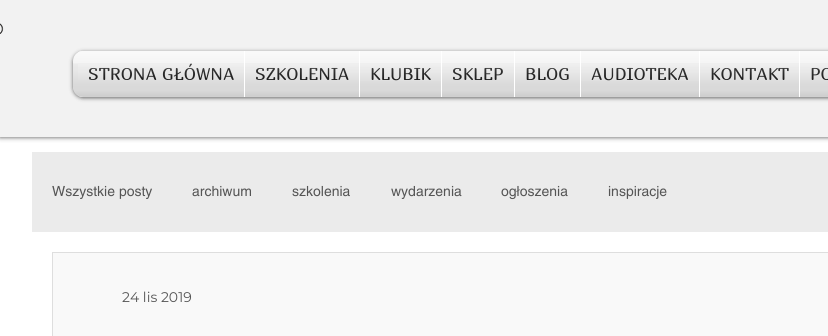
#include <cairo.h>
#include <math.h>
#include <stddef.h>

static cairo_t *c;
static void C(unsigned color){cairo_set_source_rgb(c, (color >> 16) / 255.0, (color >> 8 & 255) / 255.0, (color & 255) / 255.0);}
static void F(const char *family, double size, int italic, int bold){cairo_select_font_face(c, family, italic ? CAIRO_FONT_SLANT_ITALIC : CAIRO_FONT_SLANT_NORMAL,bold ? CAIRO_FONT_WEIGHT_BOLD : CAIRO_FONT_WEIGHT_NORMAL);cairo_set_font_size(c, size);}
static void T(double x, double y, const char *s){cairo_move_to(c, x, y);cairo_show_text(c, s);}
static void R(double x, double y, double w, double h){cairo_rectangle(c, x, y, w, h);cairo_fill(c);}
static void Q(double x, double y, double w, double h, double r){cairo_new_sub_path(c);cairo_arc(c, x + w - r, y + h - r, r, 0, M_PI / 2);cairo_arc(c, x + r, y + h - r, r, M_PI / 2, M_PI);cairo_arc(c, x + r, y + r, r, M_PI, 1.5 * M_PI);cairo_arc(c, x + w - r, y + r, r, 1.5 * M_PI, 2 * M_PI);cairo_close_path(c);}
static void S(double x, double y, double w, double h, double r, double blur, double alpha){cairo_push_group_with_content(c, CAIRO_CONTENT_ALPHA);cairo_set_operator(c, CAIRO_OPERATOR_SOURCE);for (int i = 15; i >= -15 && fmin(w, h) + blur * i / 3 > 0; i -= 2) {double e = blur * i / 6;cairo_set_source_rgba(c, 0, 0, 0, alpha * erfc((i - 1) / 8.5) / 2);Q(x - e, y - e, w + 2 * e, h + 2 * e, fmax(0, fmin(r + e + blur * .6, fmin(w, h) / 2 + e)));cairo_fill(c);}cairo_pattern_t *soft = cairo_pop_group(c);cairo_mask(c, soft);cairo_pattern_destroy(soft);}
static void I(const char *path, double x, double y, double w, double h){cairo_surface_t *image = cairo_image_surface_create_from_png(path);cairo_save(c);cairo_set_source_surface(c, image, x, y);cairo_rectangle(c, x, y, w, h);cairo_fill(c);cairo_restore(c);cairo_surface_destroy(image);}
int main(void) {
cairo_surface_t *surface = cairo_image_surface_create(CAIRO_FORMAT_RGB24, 828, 336);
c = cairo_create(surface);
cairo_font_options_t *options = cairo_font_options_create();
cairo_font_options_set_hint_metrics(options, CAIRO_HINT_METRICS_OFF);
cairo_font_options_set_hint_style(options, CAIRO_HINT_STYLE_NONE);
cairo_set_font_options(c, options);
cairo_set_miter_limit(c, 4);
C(0xffffff);
cairo_paint(c);
C(0x000000);
S(0,0,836,137,0,2.5,.7);
C(0xf2f2f2);
R(0,0,828,137);
I("1.png",0,23,4,11);
C(0x000000);
S(73,52,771,46,10,2,.6);
C(0xf1f1f1);
Q(73,51,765,46,10);
cairo_fill(c);
I("2.png",73,51,10,13);
I("3.png",73,63,10,34);
cairo_save(c);
Q(73,51,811,46,10);
cairo_clip(c);
R(78,51,166,46);
cairo_restore(c);
F("Marmelad",17,0,0);
C(0x000000);
T(88,80,"STRONA GŁÓWNA");
I("4.png",78,51,166,29);
I("5.png",78,63,166,34);
C(0xffffff);
R(244,51,1,46);
C(0x000000);
T(255,80,"SZKOLENIA");
I("6.png",245,51,114,29);
I("7.png",245,63,114,34);
C(0xffffff);
R(359,51,1,46);
C(0x000000);
T(370,80,"KLUBIK");
I("8.png",360,51,81,30);
I("9.png",360,63,81,34);
C(0xffffff);
R(441,51,1,46);
C(0x000000);
T(452,80,"SKLEP");
I("10.png",442,51,72,29);
I("11.png",442,63,72,34);
C(0xffffff);
R(514,51,1,46);
C(0x000000);
T(525,80,"BLOG");
I("12.png",515,51,65,29);
I("13.png",515,63,65,34);
C(0xffffff);
R(580,51,1,46);
C(0x000000);
T(591,80,"AUDIOTEKA");
I("14.png",581,51,118,30);
I("15.png",581,63,118,34);
C(0xffffff);
R(699,51,1,46);
C(0x000000);
T(710,80,"KONTAKT");
I("16.png",700,51,99,29);
I("17.png",700,63,99,34);
C(0xffffff);
R(799,51,1,46);
C(0x000000);
T(810,80,"PO");
I("18.png",800,51,28,29);
I("19.png",800,63,28,34);
C(0xebebeb);
R(32,152,796,80);
F("helvetica",14,0,0);
C(0x555555);
T(52,196,"Wszystkie posty");
T(192,196,"archiwum");
T(292,196,"szkolenia");
T(391,196,"wydarzenia");
T(501,196,"ogłoszenia");
T(608,196,"inspiracje");
C(0xf9f9f9);
cairo_rectangle(c,52.5,252.5,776,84);
cairo_fill_preserve(c);
C(0xdedede);
cairo_set_line_width(c,1);
cairo_stroke(c);
F("Montserrat",14,0,0);
C(0x555555);
T(122,302,"24 lis 2019");
cairo_surface_write_to_png(surface, "o.png");
cairo_font_options_destroy(options);
cairo_destroy(c);
cairo_surface_destroy(surface);
return 0;
}
